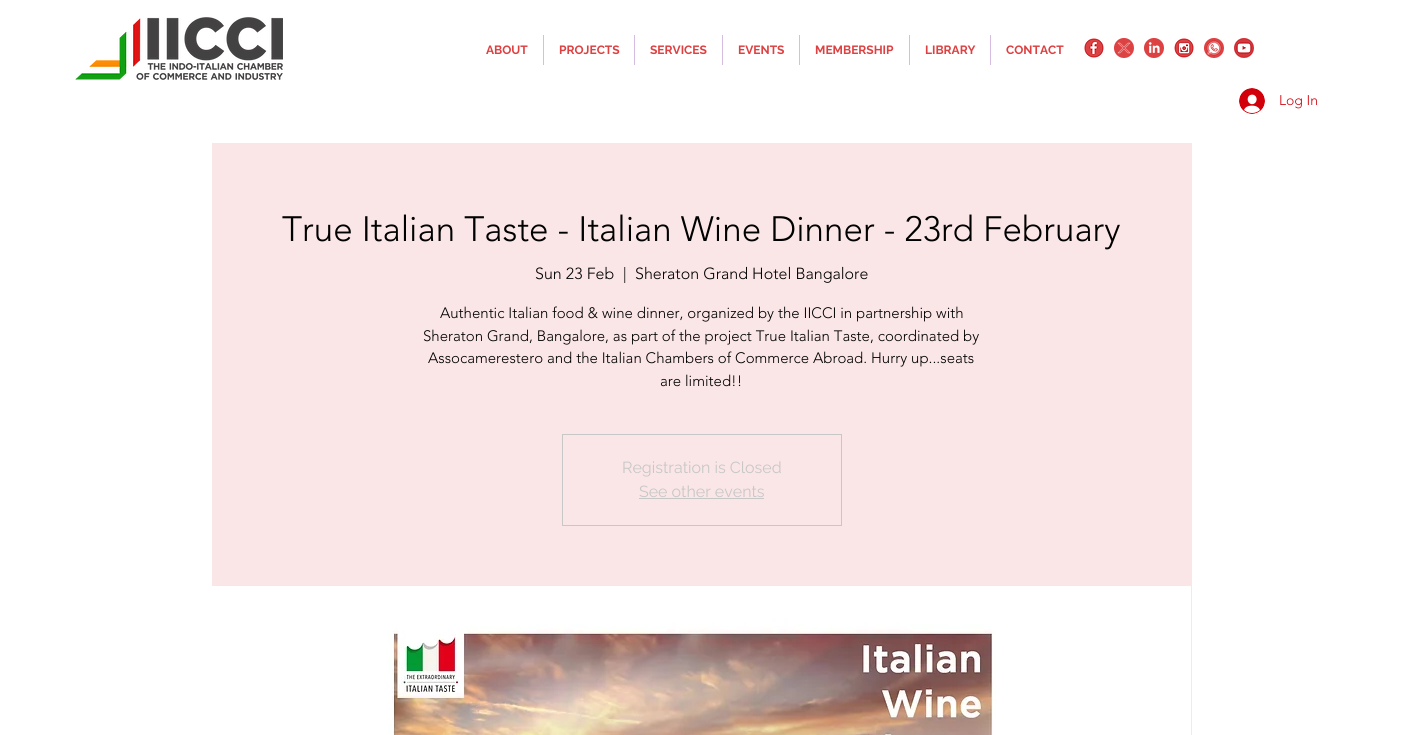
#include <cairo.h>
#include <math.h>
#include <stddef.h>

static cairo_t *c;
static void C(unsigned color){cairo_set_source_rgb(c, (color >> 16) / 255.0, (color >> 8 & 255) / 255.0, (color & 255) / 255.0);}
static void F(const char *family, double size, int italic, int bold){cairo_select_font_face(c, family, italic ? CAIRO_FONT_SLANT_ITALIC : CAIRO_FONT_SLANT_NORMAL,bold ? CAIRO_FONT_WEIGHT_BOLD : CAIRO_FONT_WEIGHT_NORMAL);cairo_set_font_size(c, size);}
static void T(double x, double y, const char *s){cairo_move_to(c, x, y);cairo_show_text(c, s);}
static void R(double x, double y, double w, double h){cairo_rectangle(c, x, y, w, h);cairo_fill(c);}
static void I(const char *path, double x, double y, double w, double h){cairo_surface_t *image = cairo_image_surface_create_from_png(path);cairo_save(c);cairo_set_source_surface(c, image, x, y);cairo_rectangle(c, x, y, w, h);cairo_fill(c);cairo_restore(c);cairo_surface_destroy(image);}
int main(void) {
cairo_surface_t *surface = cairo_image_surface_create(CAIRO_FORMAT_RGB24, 1403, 735);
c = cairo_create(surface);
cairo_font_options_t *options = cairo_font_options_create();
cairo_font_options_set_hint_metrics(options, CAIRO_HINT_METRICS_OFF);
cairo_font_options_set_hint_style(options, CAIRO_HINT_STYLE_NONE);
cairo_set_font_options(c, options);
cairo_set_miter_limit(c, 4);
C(0xffffff);
cairo_paint(c);
I("1.png",75,17,208,63);
F("Raleway",12,0,1);
C(0xdd4142);
T(486,54,"ABOUT");
C(0xd8bde2);
R(543,35,1,30);
C(0xdd4142);
T(559,54,"PROJECTS");
C(0xd8bde2);
R(634,35,1,30);
C(0xdd4142);
T(650,54,"SERVICES");
C(0xd8bde2);
R(722,35,1,30);
C(0xdd4142);
T(738,54,"EVENTS");
C(0xd8bde2);
R(799,35,1,30);
C(0xdd4142);
T(815,54,"MEMBERSHIP");
C(0xd8bde2);
R(909,35,1,30);
C(0xdd4142);
T(925,54,"LIBRARY");
C(0xd8bde2);
R(990,35,1,30);
C(0xdd4142);
T(1006,54,"CONTACT");
I("2.png",1084,38,20,20);
I("3.png",1114,38,20,20);
I("4.png",1144,38,20,20);
I("5.png",1174,38,20,20);
I("6.png",1204,38,20,20);
I("7.png",1234,38,20,20);
I("8.png",1239,88,26,26);
F("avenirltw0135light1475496 Light",14,0,0);
C(0xd1000a);
T(1279,105,"Log In");
C(0xfbe6e7);
R(212,143,980,592);
F("avenirltw0135light1475496 Light",35,0,0);
C(0x000000);
T(282,241,"True Italian Taste - Italian Wine Dinner - 23rd February");
F("avenirltw0135light1475496 Light",16,0,0);
T(535,279,"Sun 23 Feb");
T(623,279,"|");
T(635,279,"Sheraton Grand Hotel Bangalore");
F("avenirltw0135light1475496 Light",15,0,0);
T(440,318,"Authentic Italian food & wine dinner, organized by the IICCI in partnership with");
T(423,341,"Sheraton Grand, Bangalore, as part of the project True Italian Taste, coordinated by");
T(428,363,"Assocamerestero and the Italian Chambers of Commerce Abroad. Hurry up...seats");
T(660,386,"are limited!!");
cairo_rectangle(c,562.5,434.5,279,91);
C(0xc7c7c7);
cairo_set_line_width(c,1);
cairo_stroke(c);
F("Raleway",16,0,0);
T(622,473,"Registration is Closed");
T(639,497,"See other events");
R(639,498,125,1);
I("9.png",212,586,979,149);
cairo_surface_write_to_png(surface, "o.png");
cairo_font_options_destroy(options);
cairo_destroy(c);
cairo_surface_destroy(surface);
return 0;
}
